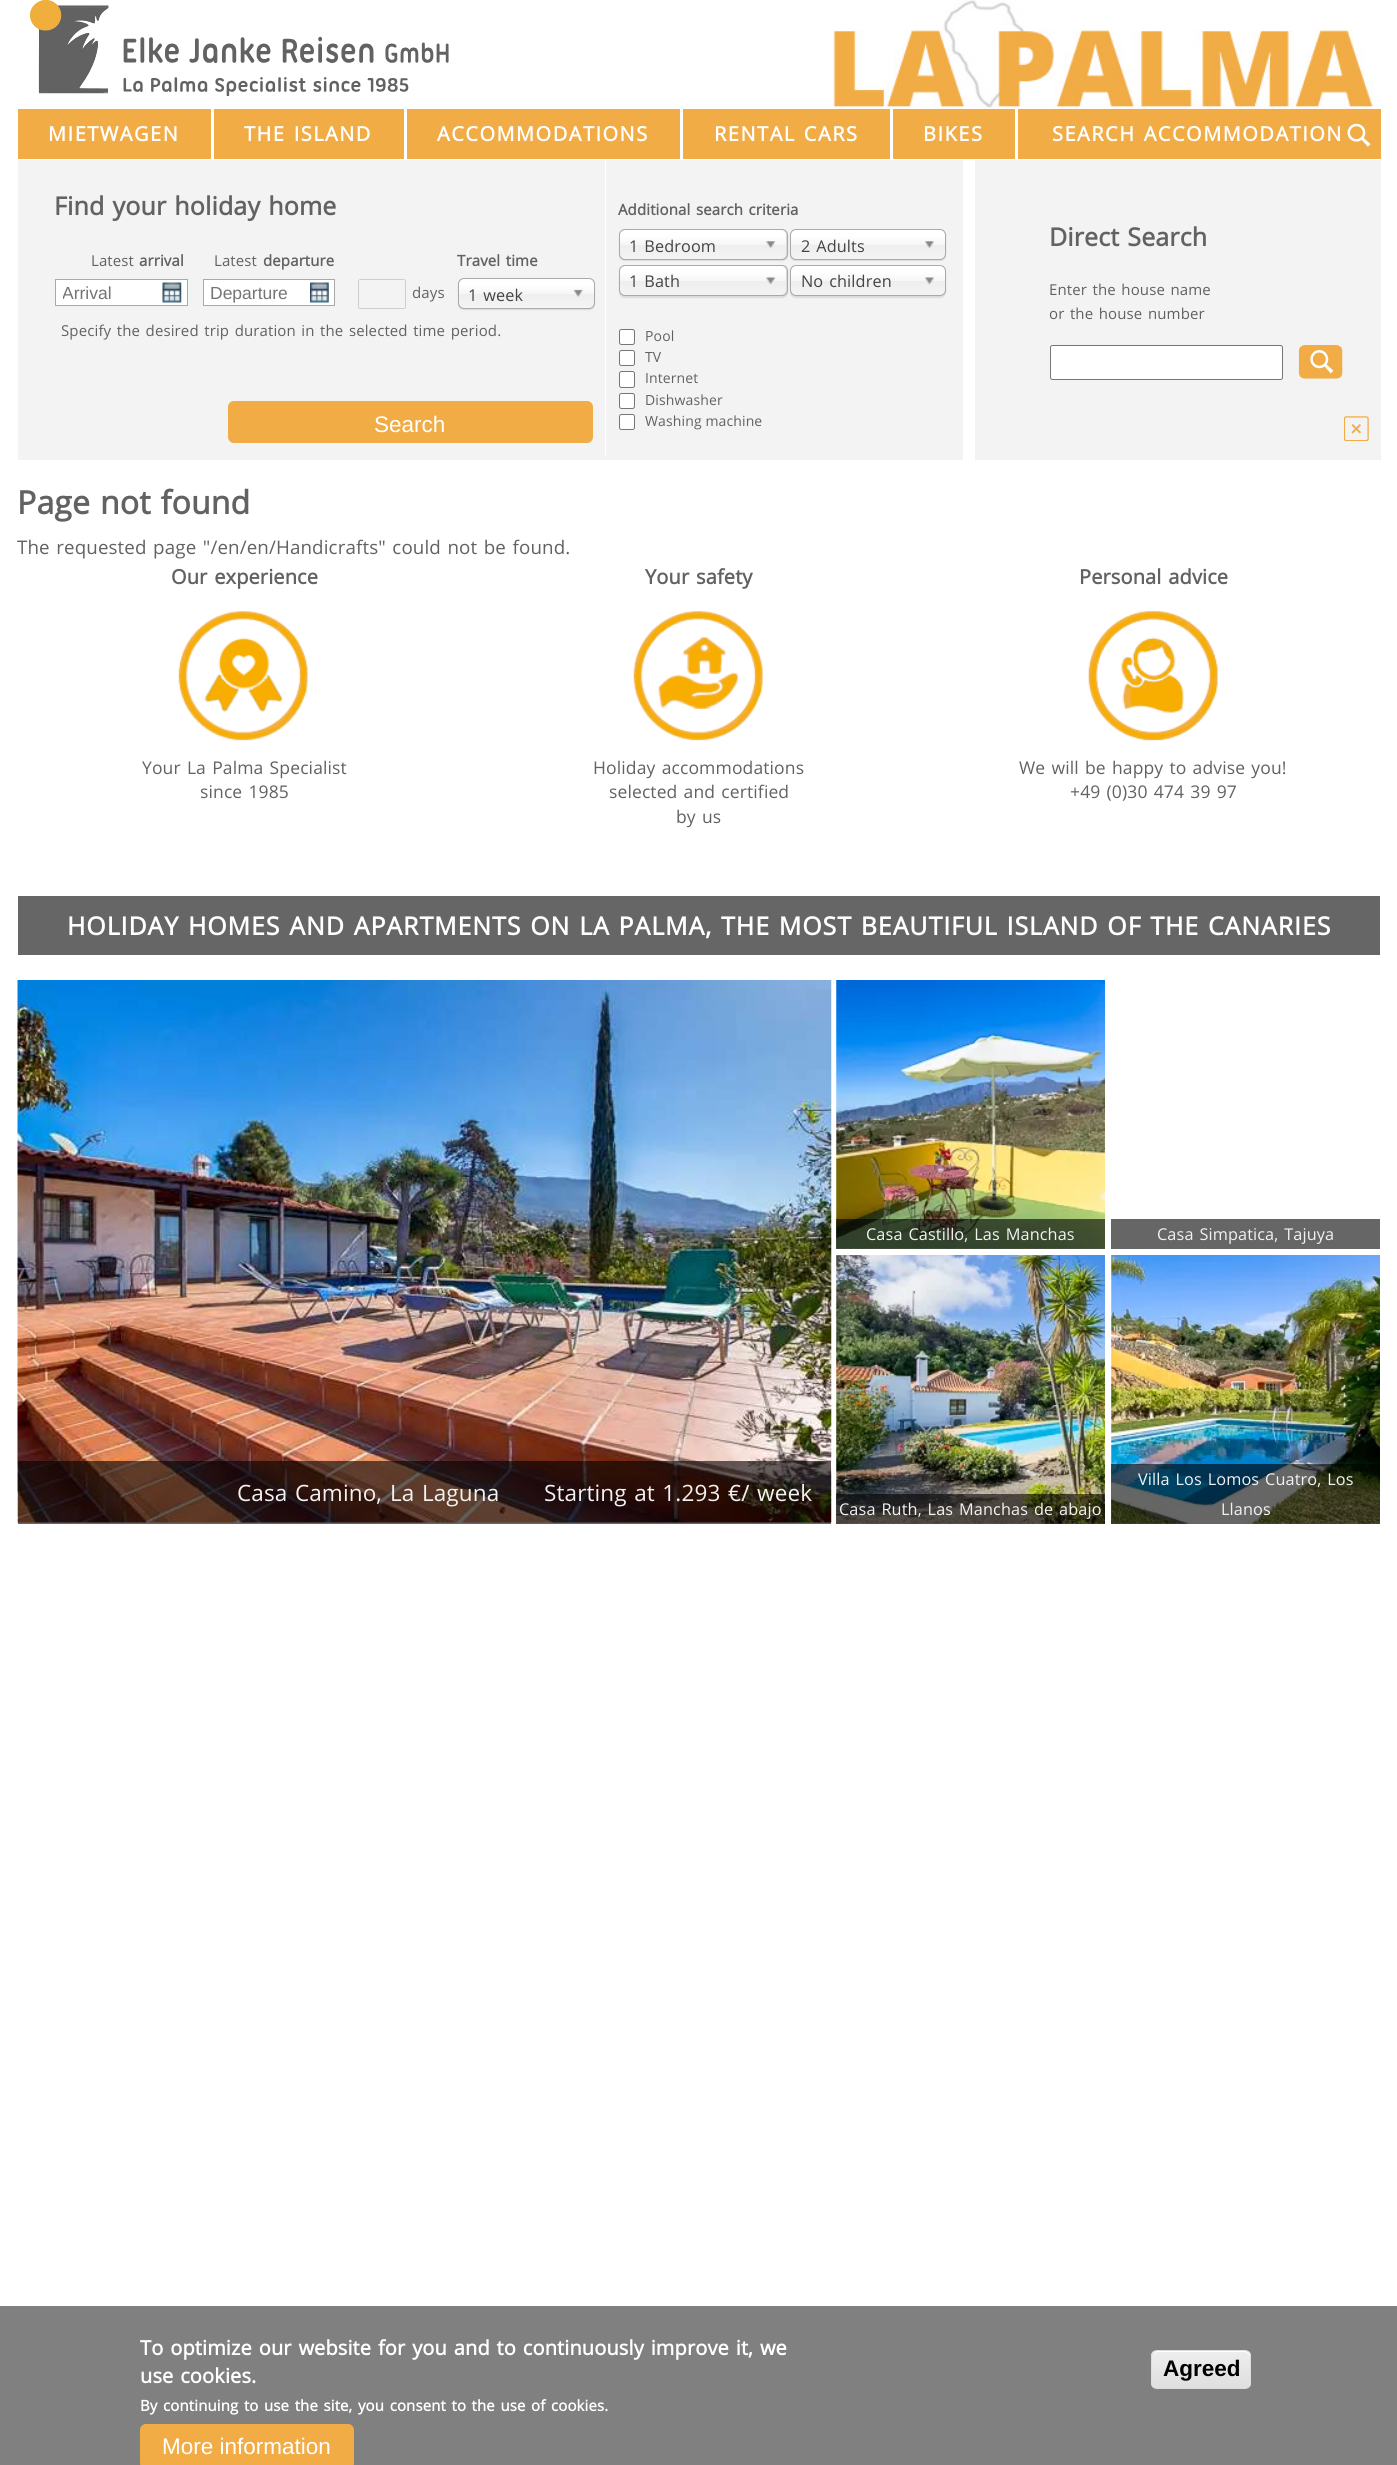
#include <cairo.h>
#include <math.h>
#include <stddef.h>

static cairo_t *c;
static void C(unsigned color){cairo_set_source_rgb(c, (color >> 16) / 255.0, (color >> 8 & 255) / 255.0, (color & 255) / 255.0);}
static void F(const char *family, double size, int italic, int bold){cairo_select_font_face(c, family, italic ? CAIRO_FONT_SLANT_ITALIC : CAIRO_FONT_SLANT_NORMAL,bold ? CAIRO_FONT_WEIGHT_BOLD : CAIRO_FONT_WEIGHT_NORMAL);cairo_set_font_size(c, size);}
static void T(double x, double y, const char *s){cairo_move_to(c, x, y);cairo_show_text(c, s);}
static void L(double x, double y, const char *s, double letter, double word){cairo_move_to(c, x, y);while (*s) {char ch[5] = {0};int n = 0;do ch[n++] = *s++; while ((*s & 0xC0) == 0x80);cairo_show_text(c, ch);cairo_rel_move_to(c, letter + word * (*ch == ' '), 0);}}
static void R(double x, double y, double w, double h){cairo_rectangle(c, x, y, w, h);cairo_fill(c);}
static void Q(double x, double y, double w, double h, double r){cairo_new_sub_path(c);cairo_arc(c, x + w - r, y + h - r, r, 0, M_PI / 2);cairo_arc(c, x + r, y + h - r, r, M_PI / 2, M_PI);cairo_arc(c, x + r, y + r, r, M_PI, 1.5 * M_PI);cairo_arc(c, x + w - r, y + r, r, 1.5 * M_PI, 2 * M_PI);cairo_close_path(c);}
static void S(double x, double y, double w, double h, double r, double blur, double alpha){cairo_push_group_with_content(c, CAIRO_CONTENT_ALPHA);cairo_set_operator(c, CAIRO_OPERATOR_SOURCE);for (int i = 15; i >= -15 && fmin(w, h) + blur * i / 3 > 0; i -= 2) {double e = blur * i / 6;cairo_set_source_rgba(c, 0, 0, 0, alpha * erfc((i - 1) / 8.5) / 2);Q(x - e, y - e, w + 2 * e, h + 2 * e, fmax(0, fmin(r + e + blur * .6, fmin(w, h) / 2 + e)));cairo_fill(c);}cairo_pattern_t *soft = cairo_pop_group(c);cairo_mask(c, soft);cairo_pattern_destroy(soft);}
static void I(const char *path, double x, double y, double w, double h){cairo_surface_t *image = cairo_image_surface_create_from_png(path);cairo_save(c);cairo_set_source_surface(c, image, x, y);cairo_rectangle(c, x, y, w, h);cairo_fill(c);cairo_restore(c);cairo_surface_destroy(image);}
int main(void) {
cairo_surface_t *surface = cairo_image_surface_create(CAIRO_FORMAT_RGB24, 1397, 2465);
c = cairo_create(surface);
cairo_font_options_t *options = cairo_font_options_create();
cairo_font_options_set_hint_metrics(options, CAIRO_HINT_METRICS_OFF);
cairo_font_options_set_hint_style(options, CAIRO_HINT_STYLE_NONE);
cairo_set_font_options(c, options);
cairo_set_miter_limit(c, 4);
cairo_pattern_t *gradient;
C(0xffffff);
cairo_paint(c);
I("1.png",30,0,419,96);
I("2.png",833,0,540,109);
C(0xf2ac45);
R(18,109,1363,50);
C(0xffffff);
R(211,109,3,50);
F("Open Sans",20,0,1);
L(48,141,"MIETWAGEN",1.5,0);
R(404,109,3,50);
L(244,141,"THE ISLAND",1.5,1.5);
R(680,109,3,50);
L(437,141,"ACCOMMODATIONS",1.5,0);
R(890,109,3,50);
L(714,141,"RENTAL CARS",1.5,1.5);
R(1015,109,3,50);
L(923,141,"BIKES",1.5,0);
I("3.png",1347,123,24,24);
L(1052,141,"SEARCH ACCOMMODATION",1.5,1.5);
C(0xf3f3f3);
R(18,160,1363,300);
F("Open Sans",25,0,1);
C(0x626262);
L(54,215,"Find your holiday home",.12,1.5);
F("Open Sans",15,0,0);
L(91,266,"Latest",.12,0);
F("Open Sans",15,0,1);
L(139,266,"arrival",.12,0);
F("Open Sans",15,0,0);
L(214,266,"Latest",.12,0);
F("Open Sans",15,0,1);
L(263,266,"departure",.12,0);
C(0xffffff);
R(56,280,131,25);
I("4.png",162,282,20,21);
cairo_rectangle(c,55.5,279.5,132,26);
C(0xa9a9a9);
cairo_set_line_width(c,1);
cairo_stroke(c);
cairo_save(c);
cairo_rectangle(c,63,283,117,20);
cairo_clip(c);
F("Liberation Sans",17.5,0,0);
C(0x757575);
T(62,299,"Arrival");
cairo_restore(c);
C(0xffffff);
R(204,280,130,25);
I("5.png",310,282,19,21);
cairo_rectangle(c,203.5,279.5,131,26);
C(0xa9a9a9);
cairo_stroke(c);
F("Liberation Sans",17.5,0,0);
C(0x757575);
T(210,299,"Departure");
Q(358.5,279.5,47,29,2);
C(0xcecece);
cairo_stroke(c);
F("Open Sans",15,0,0);
C(0x626262);
L(412,298,"days",.12,0);
F("Open Sans",15,0,1);
L(457,266,"Travel time",.12,1.5);
C(0x000000);
S(458,279,137,31,6,.5,.1);
gradient = cairo_pattern_create_linear(526,279,526,308);
cairo_pattern_add_color_stop_rgba(gradient,.2,1,1,1,1);
cairo_pattern_add_color_stop_rgba(gradient,.5,0.965,0.965,0.965,1);
cairo_pattern_add_color_stop_rgba(gradient,.52,0.933,0.933,0.933,1);
cairo_pattern_add_color_stop_rgba(gradient,1,0.957,0.957,0.957,1);
cairo_set_source(c,gradient);
cairo_pattern_destroy(gradient);
Q(459,279,135,29,5);
cairo_fill(c);
Q(458.5,278.5,136,30,5.5);
C(0xaaaaaa);
cairo_stroke(c);
F("Open Sans",16.25,0,0);
C(0x444444);
L(468,301,"1 week",.12,1.5);
I("6.png",573,289,10,8);
F("Open Sans",15,0,0);
C(0x626262);
L(61,336,"Specify the desired trip duration in the selected time period.",.12,1.5);
C(0xf2ac45);
Q(228,401,365,42,6);
cairo_fill(c);
F("Liberation Sans",22.5,0,0);
C(0xffffff);
T(374,432,"Search");
R(605,160,1,296);
F("Open Sans",15,0,1);
C(0x626262);
L(618,215,"Additional search criteria",.12,1.5);
C(0x000000);
S(619,230,169,31,6,.5,.1);
gradient = cairo_pattern_create_linear(703,230,703,259);
cairo_pattern_add_color_stop_rgba(gradient,.2,1,1,1,1);
cairo_pattern_add_color_stop_rgba(gradient,.5,0.965,0.965,0.965,1);
cairo_pattern_add_color_stop_rgba(gradient,.52,0.933,0.933,0.933,1);
cairo_pattern_add_color_stop_rgba(gradient,1,0.957,0.957,0.957,1);
cairo_set_source(c,gradient);
cairo_pattern_destroy(gradient);
Q(620,230,166,29,5);
cairo_fill(c);
Q(619.5,229.5,168,30,5.5);
C(0xaaaaaa);
cairo_stroke(c);
F("Open Sans",16.25,0,0);
C(0x444444);
L(629,252,"1 Bedroom",.12,1.5);
I("7.png",766,241,10,7);
C(0x000000);
S(790,230,156,31,6,.5,.1);
gradient = cairo_pattern_create_linear(868,230,868,259);
cairo_pattern_add_color_stop_rgba(gradient,.2,1,1,1,1);
cairo_pattern_add_color_stop_rgba(gradient,.5,0.965,0.965,0.965,1);
cairo_pattern_add_color_stop_rgba(gradient,.52,0.933,0.933,0.933,1);
cairo_pattern_add_color_stop_rgba(gradient,1,0.957,0.957,0.957,1);
cairo_set_source(c,gradient);
cairo_pattern_destroy(gradient);
Q(791,230,154,29,5);
cairo_fill(c);
Q(790.5,229.5,155,30,5.5);
C(0xaaaaaa);
cairo_stroke(c);
C(0x444444);
L(801,252,"2 Adults",.12,1.5);
I("8.png",925,241,9,7);
C(0x000000);
S(619,266,169,32,6,.5,.1);
gradient = cairo_pattern_create_linear(703,266,703,295);
cairo_pattern_add_color_stop_rgba(gradient,.2,1,1,1,1);
cairo_pattern_add_color_stop_rgba(gradient,.5,0.965,0.965,0.965,1);
cairo_pattern_add_color_stop_rgba(gradient,.52,0.933,0.933,0.933,1);
cairo_pattern_add_color_stop_rgba(gradient,1,0.957,0.957,0.957,1);
cairo_set_source(c,gradient);
cairo_pattern_destroy(gradient);
Q(620,266,166,29,5);
cairo_fill(c);
Q(619.5,265.5,168,30,5.5);
C(0xaaaaaa);
cairo_stroke(c);
C(0x444444);
L(629,287,"1 Bath",.12,1.5);
I("9.png",766,277,10,8);
C(0x000000);
S(790,266,156,32,6,.5,.1);
gradient = cairo_pattern_create_linear(868,266,868,295);
cairo_pattern_add_color_stop_rgba(gradient,.2,1,1,1,1);
cairo_pattern_add_color_stop_rgba(gradient,.5,0.965,0.965,0.965,1);
cairo_pattern_add_color_stop_rgba(gradient,.52,0.933,0.933,0.933,1);
cairo_pattern_add_color_stop_rgba(gradient,1,0.957,0.957,0.957,1);
cairo_set_source(c,gradient);
cairo_pattern_destroy(gradient);
Q(791,266,154,29,5);
cairo_fill(c);
Q(790.5,265.5,155,30,5.5);
C(0xaaaaaa);
cairo_stroke(c);
C(0x444444);
L(801,287,"No children",.12,1.5);
I("10.png",925,277,9,8);
C(0xffffff);
Q(619.5,329.5,15,15,2);
cairo_fill_preserve(c);
C(0x767676);
cairo_stroke(c);
F("Open Sans",14,0,0);
C(0x626262);
L(645,341,"Pool",.12,0);
C(0xffffff);
Q(619.5,350.5,15,15,2);
cairo_fill_preserve(c);
C(0x767676);
cairo_stroke(c);
C(0x626262);
L(645,362,"TV",.12,0);
C(0xffffff);
Q(619.5,371.5,15,16,2);
cairo_fill_preserve(c);
C(0x767676);
cairo_stroke(c);
C(0x626262);
L(645,383,"Internet",.12,0);
C(0xffffff);
Q(619.5,393.5,15,15,2);
cairo_fill_preserve(c);
C(0x767676);
cairo_stroke(c);
C(0x626262);
L(645,405,"Dishwasher",.12,0);
C(0xffffff);
Q(619.5,414.5,15,15,2);
cairo_fill_preserve(c);
C(0x767676);
cairo_stroke(c);
C(0x626262);
L(645,426,"Washing machine",.12,0);
C(0xffffff);
R(963,160,12,300);
F("Open Sans",25,0,1);
C(0x626262);
L(1049,246,"Direct Search",.12,1.5);
F("Open Sans",15,0,0);
L(1049,295,"Enter the house name",.12,1.5);
L(1049,319,"or the house number",.12,1.5);
C(0xffffff);
Q(1050.5,345.5,232,34,2);
cairo_fill_preserve(c);
C(0x767676);
cairo_stroke(c);
I("11.png",1298,345,45,34);
I("12.png",1344,416,25,25);
F("Open Sans",32,0,1);
C(0x626262);
L(17,514,"Page not found",.12,1.5);
F("Open Sans",18.75,0,0);
L(17,554,"The requested page \"/en/en/Handicrafts\" could not be found.",.12,1.5);
F("Open Sans",20,0,1);
L(171,584,"Our experience",.12,1.5);
L(645,584,"Your safety",.12,1.5);
L(1079,584,"Personal advice",.12,1.5);
I("13.png",178,611,130,130);
I("14.png",633,611,130,130);
I("15.png",1088,611,130,130);
F("Open Sans",17.5,0,0);
L(142,774,"Your La Palma Specialist",.12,1.5);
L(200,798,"since 1985",.12,1.5);
L(593,774,"Holiday accommodations",.12,1.5);
L(609,798,"selected and certified",.12,1.5);
L(676,823,"by us",.12,1.5);
L(1019,774,"We will be happy to advise you!",.12,1.5);
L(1070,798,"+49 (0)30 474 39 97",.12,1.5);
C(0x666666);
R(18,896,1362,59);
F("Open Sans",25,0,1);
C(0xffffff);
L(67,935,"HOLIDAY HOMES AND APARTMENTS ON LA PALMA, THE MOST BEAUTIFUL ISLAND OF THE CANARIES",.88,1.5);
I("16.png",836,980,269,269);
cairo_set_source_rgba(c,0,0,0,0.6);
R(836,1219,269,30);
F("Open Sans",16.25,0,0);
C(0xf2f2f2);
L(866,1240,"Casa Castillo, Las Manchas",.12,1.5);
C(0x666666);
R(1111,1219,269,30);
C(0xf2f2f2);
L(1157,1240,"Casa Simpatica, Tajuya",.12,1.5);
I("17.png",17,980,815,543);
cairo_set_source_rgba(c,0,0,0,0.6);
R(18,1461,813,63);
F("Open Sans",22.5,0,0);
C(0xf2f2f2);
L(237,1501,"Casa Camino,",.12,1.5);
L(390,1501,"La Laguna",.12,1.5);
L(544,1501,"Starting at 1.293 €/ week",.12,1.5);
I("18.png",1111,1255,269,269);
cairo_set_source_rgba(c,0,0,0,0.6);
R(1111,1464,269,60);
F("Open Sans",16.25,0,0);
C(0xf2f2f2);
L(1138,1485,"Villa Los Lomos Cuatro, Los",.12,1.5);
L(1221,1515,"Llanos",.12,0);
I("19.png",836,1255,269,269);
cairo_set_source_rgba(c,0,0,0,0.6);
R(836,1494,269,30);
C(0xf2f2f2);
L(839,1515,"Casa Ruth, Las Manchas de abajo",.12,1.5);
C(0x808080);
R(0,2306,1397,159);
F("Open Sans",20,0,1);
C(0xffffff);
L(140,2355,"To optimize our website for you and to continuously improve it, we",.12,1.5);
L(140,2383,"use cookies.",.12,1.5);
F("Open Sans",15,0,1);
L(140,2411,"By continuing to use the site, you consent to the use of cookies.",.12,1.5);
C(0xf2ac45);
Q(140,2424,214,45,6);
cairo_fill(c);
F("Liberation Sans",22.5,0,0);
C(0xffffff);
T(162,2454,"More information");
cairo_save(c);
Q(1151,2350,100,39,6);
cairo_clip(c);
gradient = cairo_pattern_create_linear(1201,2351,1201,2388);
cairo_pattern_add_color_stop_rgba(gradient,.05,0.929,0.929,0.929,1);
cairo_pattern_add_color_stop_rgba(gradient,1,0.875,0.875,0.875,1);
cairo_set_source(c,gradient);
cairo_pattern_destroy(gradient);
R(1151,2351,100,37);
cairo_restore(c);
cairo_new_path(c);
cairo_move_to(c,1158,2352);
cairo_line_to(c,1245,2352);
cairo_curve_to(c,1248,2352,1250,2355,1250,2358);
cairo_line_to(c,1250,2356);
cairo_curve_to(c,1250,2353,1248,2351,1245,2351);
cairo_line_to(c,1158,2351);
cairo_curve_to(c,1156,2351,1154,2353,1153,2355);
cairo_curve_to(c,1154,2353,1156,2352,1158,2352);
cairo_close_path(c);
cairo_fill(c);
Q(1151.5,2350.5,99,38,5.5);
C(0xdcdcdc);
cairo_stroke(c);
F("Liberation Sans",22.5,0,1);
C(0x000000);
T(1163,2376,"Agreed");
cairo_surface_write_to_png(surface, "o.png");
cairo_font_options_destroy(options);
cairo_destroy(c);
cairo_surface_destroy(surface);
return 0;
}
